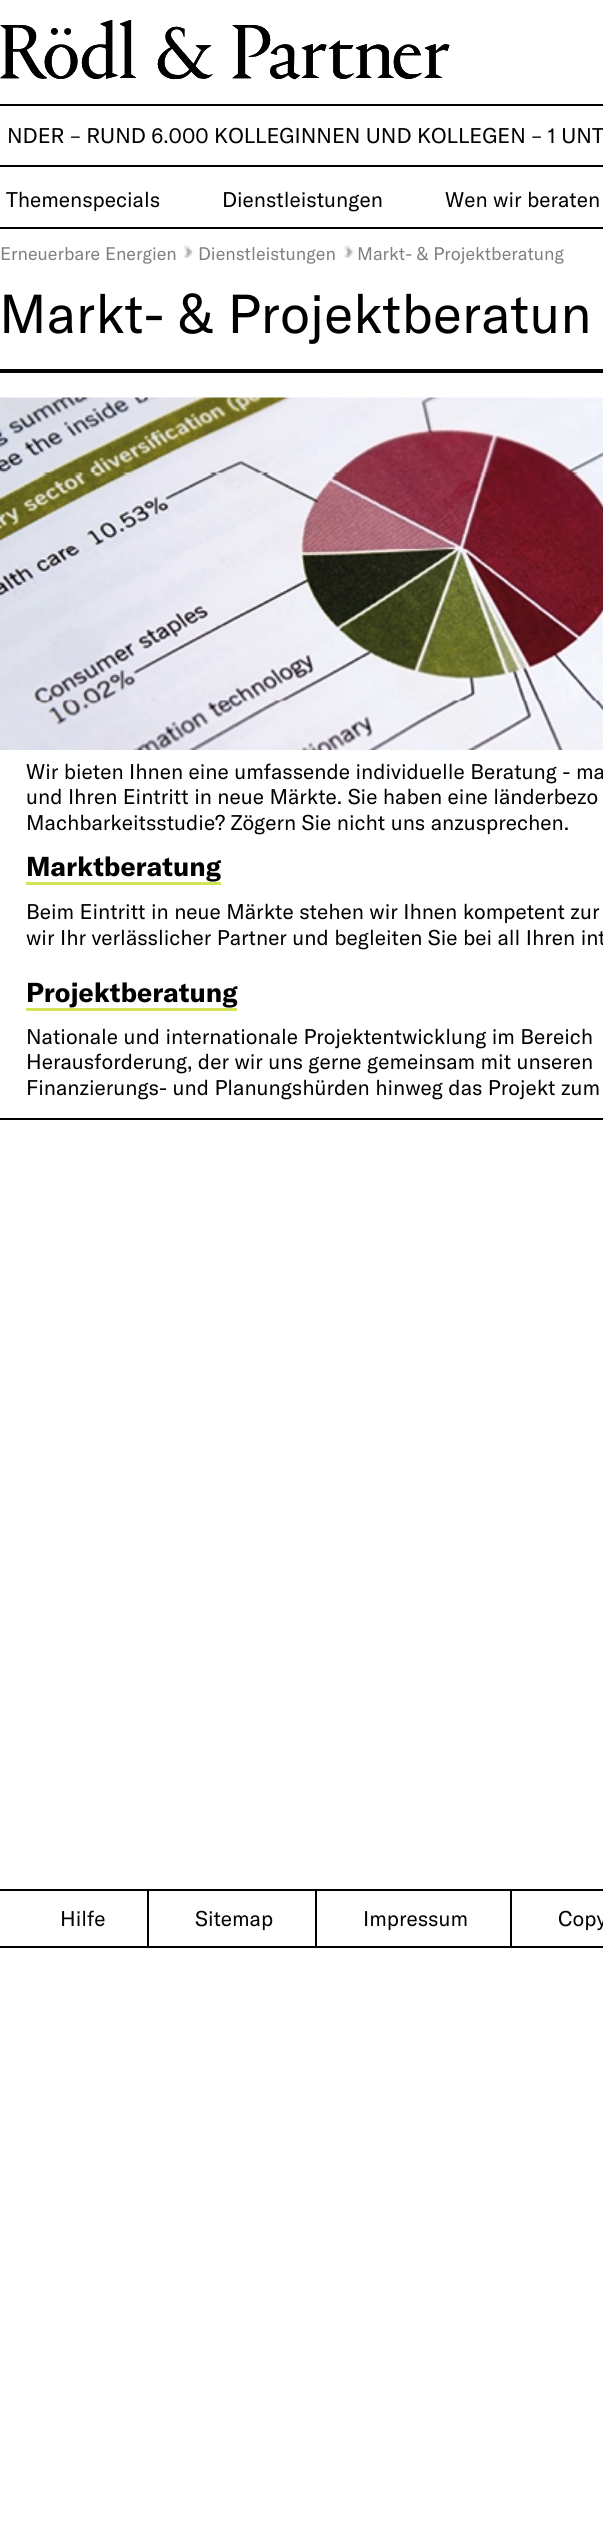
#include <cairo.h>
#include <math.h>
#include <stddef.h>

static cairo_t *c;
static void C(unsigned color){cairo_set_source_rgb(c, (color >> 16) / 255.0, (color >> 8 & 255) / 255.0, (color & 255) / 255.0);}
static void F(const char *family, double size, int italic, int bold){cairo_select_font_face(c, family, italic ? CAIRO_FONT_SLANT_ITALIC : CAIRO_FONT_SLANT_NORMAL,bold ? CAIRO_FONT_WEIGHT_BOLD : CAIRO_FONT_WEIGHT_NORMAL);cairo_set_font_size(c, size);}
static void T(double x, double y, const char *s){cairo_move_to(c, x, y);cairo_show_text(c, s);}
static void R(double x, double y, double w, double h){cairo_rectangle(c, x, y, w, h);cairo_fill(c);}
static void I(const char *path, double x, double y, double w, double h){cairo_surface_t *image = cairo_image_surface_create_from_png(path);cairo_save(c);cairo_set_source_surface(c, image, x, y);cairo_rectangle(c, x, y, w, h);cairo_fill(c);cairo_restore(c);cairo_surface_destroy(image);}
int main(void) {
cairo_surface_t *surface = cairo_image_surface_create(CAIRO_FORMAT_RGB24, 603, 2525);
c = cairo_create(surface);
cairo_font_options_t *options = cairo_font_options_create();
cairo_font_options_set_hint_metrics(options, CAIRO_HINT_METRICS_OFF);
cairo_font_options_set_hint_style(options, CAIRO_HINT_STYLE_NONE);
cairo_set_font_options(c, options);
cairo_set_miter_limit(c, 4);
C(0xffffff);
cairo_paint(c);
I("1.png",0,20,450,60);
C(0x000000);
R(0,104,603,2);
R(0,165,603,2);
F("GT America",21,0,0);
T(7,143,"NDER – RUND 6.000 KOLLEGINNEN UND KOLLEGEN – 1 UNT");
R(0,227,603,2);
T(6,207,"Themenspecials");
T(222,207,"Dienstleistungen");
T(445,207,"Wen wir beraten");
F("GT America",18,0,0);
C(0x808080);
T(0,260,"Erneuerbare Energien");
I("2.png",184,245,10,13);
T(198,260,"Dienstleistungen");
I("3.png",344,245,10,13);
T(357,260,"Markt- & Projektberatung");
C(0x000000);
R(0,369,603,4);
F("GT America",54,0,0);
T(-1,333,"Markt- & Projektberatun");
I("4.png",0,397,603,353);
F("GT America",21,0,0);
T(26,779,"Wir bieten Ihnen eine umfassende individuelle Beratung - ma");
T(26,804,"und Ihren Eintritt in neue Märkte. Sie haben eine länderbezo");
T(26,830,"Machbarkeitsstudie? Zögern Sie nicht uns anzusprechen.");
F("GT America",27,0,1);
T(26,876,"Marktberatung");
C(0xd4e458);
R(26,882,195,3);
F("GT America",21,0,0);
C(0x000000);
T(26,919,"Beim Eintritt in neue Märkte stehen wir Ihnen kompetent zur");
T(26,945,"wir Ihr verlässlicher Partner und begleiten Sie bei all Ihren int");
F("GT America",27,0,1);
T(26,1002,"Projektberatung");
C(0xd4e458);
R(26,1008,211,3);
F("GT America",21,0,0);
C(0x000000);
T(26,1044,"Nationale und internationale Projektentwicklung im Bereich");
T(26,1069,"Herausforderung, der wir uns gerne gemeinsam mit unseren");
T(26,1095,"Finanzierungs- und Planungshürden hinweg das Projekt zum");
R(0,1118,603,2);
R(0,1889,603,2);
R(0,1946,603,2);
T(60,1926,"Hilfe");
R(147,1890,2,56);
T(195,1926,"Sitemap");
R(315,1890,2,56);
T(363,1926,"Impressum");
R(510,1890,2,56);
T(558,1926,"Copy");
cairo_surface_write_to_png(surface, "o.png");
cairo_font_options_destroy(options);
cairo_destroy(c);
cairo_surface_destroy(surface);
return 0;
}
